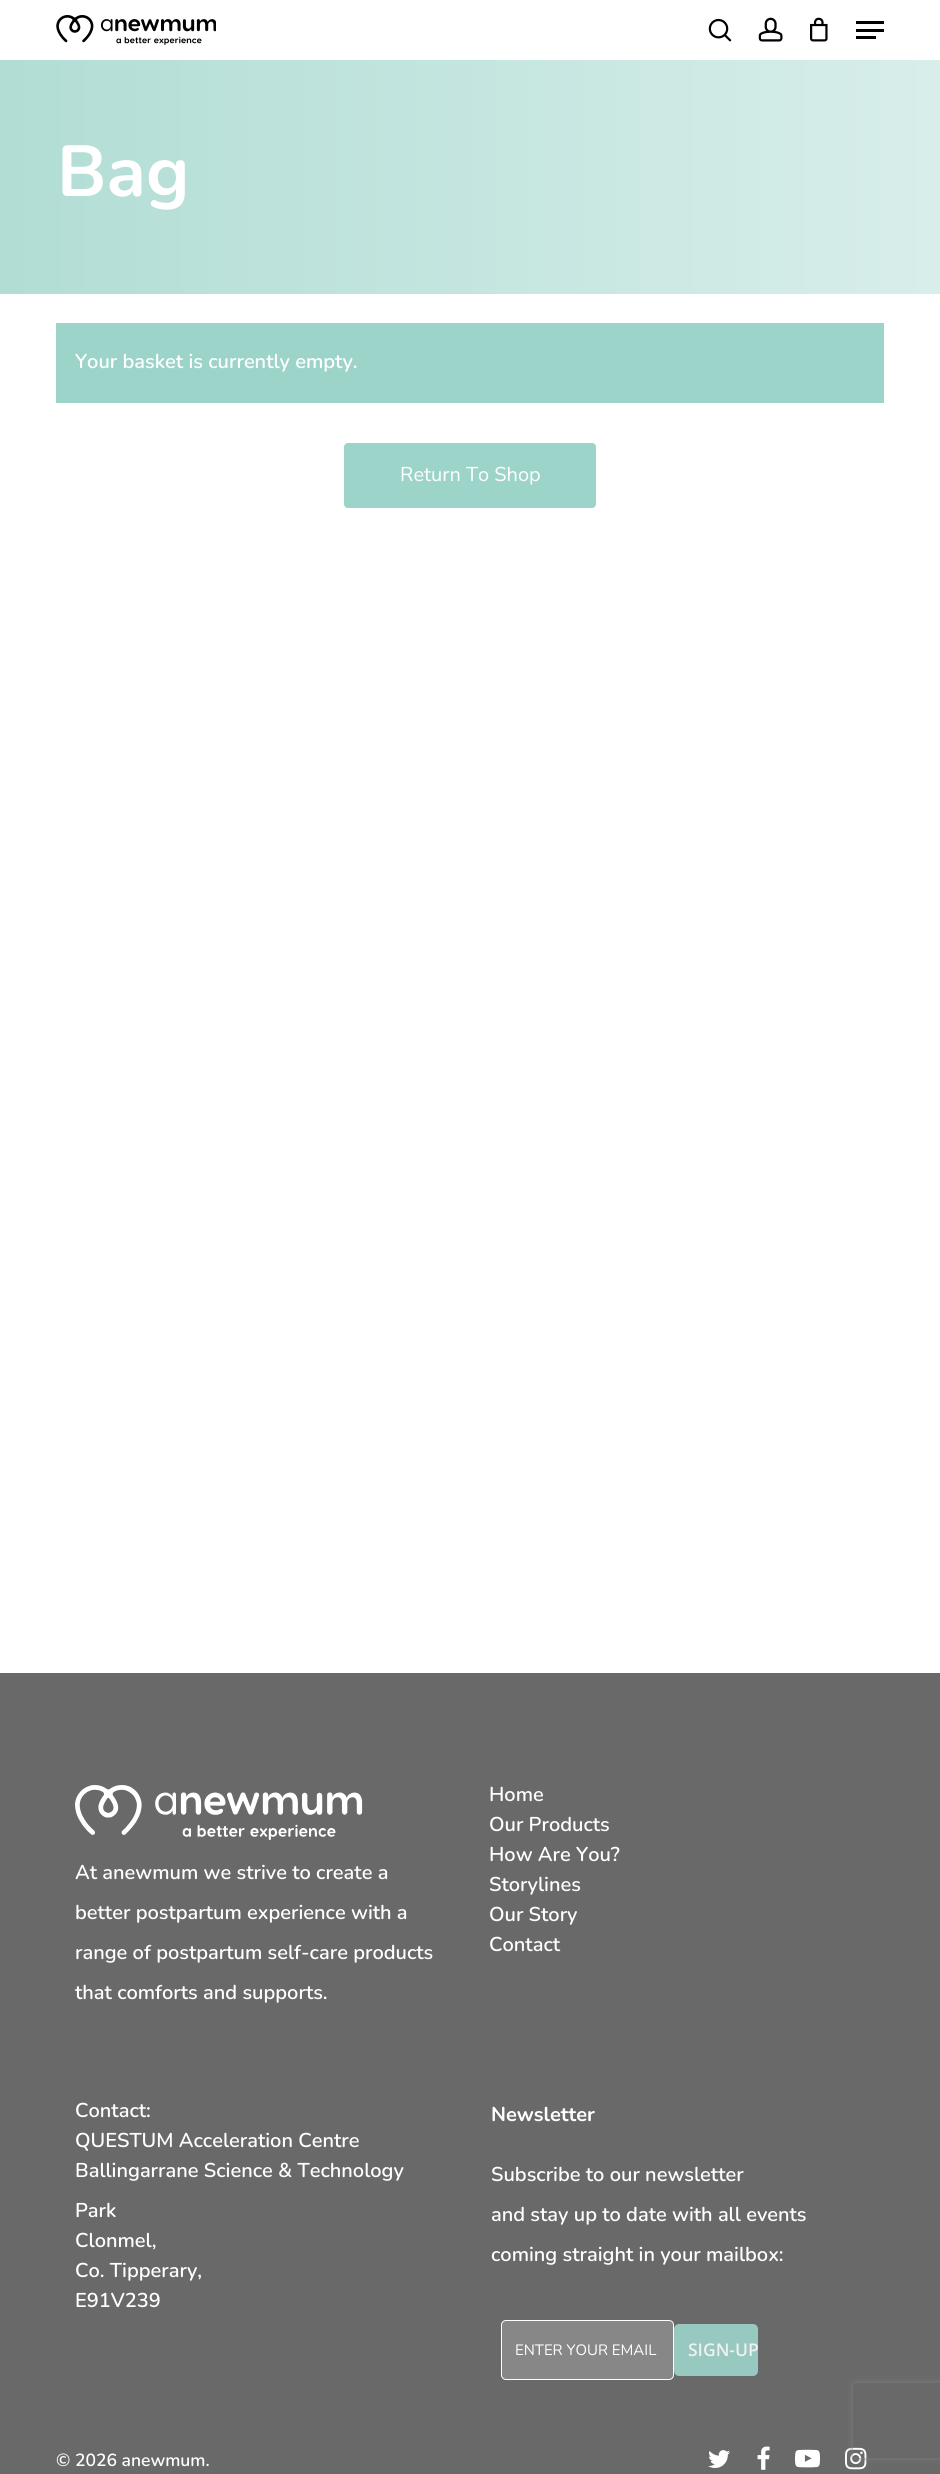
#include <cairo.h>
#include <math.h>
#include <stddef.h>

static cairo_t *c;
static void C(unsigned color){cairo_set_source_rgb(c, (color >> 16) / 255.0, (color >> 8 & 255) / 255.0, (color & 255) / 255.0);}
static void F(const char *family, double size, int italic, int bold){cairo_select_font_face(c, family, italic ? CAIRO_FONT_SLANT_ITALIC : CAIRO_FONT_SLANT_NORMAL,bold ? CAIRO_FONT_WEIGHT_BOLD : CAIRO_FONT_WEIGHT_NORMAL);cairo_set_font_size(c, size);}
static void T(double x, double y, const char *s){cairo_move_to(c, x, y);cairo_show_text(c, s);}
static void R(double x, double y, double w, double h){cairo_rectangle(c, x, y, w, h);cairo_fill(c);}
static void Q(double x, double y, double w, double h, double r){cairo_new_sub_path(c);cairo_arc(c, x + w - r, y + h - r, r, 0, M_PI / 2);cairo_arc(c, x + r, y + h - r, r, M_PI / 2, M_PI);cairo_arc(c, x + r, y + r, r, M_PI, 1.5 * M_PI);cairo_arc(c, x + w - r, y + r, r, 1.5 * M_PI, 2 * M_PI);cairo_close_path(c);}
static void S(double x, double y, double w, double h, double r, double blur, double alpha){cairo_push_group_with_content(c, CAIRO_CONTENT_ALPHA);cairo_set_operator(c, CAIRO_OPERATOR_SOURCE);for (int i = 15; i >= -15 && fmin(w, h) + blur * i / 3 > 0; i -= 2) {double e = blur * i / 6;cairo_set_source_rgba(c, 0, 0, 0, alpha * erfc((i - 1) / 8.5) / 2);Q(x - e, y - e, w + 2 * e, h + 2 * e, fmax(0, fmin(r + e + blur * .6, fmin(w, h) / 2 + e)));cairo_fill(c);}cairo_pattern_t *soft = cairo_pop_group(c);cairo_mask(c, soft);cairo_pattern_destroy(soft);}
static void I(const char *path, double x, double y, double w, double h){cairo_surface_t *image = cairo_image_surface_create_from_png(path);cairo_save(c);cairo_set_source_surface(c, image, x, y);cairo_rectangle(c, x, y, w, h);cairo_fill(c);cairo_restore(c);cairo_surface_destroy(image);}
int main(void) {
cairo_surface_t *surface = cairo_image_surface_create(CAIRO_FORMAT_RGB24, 940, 2474);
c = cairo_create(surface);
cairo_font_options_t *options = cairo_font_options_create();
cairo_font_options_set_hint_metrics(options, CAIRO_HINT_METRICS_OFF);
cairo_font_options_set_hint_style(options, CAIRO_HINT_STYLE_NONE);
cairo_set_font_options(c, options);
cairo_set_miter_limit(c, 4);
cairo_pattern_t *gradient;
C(0xffffff);
cairo_paint(c);
I("1.png",56,15,160,30);
I("2.png",708,18,24,24);
I("3.png",758,17,25,25);
I("4.png",810,17,18,25);
C(0x000000);
R(856,21,28,3);
R(856,36,20,3);
R(856,29,28,3);
gradient = cairo_pattern_create_linear(0,177,940,177);
cairo_pattern_add_color_stop_rgba(gradient,0,0.694,0.867,0.835,1);
cairo_pattern_add_color_stop_rgba(gradient,1,0.847,0.933,0.918,1);
cairo_set_source(c,gradient);
cairo_pattern_destroy(gradient);
R(0,60,940,234);
F("Nunito",72,0,1);
C(0xffffff);
T(57,196,"Bag");
C(0x9dd4ca);
R(56,323,828,80);
F("Nunito SemiBold",20,0,0);
C(0xffffff);
T(75,368,"Your basket is currently empty.");
C(0x9dd4ca);
Q(344,443,252,65,4);
cairo_fill(c);
F("Nunito",20,0,0);
C(0xffffff);
T(400,481,"Return To Shop");
C(0x696969);
R(0,1673,940,801);
I("5.png",75,1785,288,55);
F("Nunito SemiBold",20,0,0);
C(0xffffff);
T(75,1879,"At anewmum we strive to create a");
T(75,1919,"better postpartum experience with a");
T(75,1959,"range of postpartum self-care products");
T(75,1999,"that comforts and supports.");
T(489,1801,"Home");
T(489,1831,"Our Products");
T(489,1861,"How Are You?");
T(489,1891,"Storylines");
T(489,1921,"Our Story");
T(489,1951,"Contact");
T(75,2117,"Contact:");
T(75,2147,"QUESTUM Acceleration Centre");
T(75,2177,"Ballingarrane Science & Technology");
T(75,2217,"Park");
T(75,2247,"Clonmel,");
T(75,2277,"Co. Tipperary,");
T(75,2307,"E91V239");
F("Nunito",20,0,1);
T(491,2121,"Newsletter");
F("Nunito SemiBold",20,0,0);
T(491,2181,"Subscribe to our newsletter");
T(491,2221,"and stay up to date with all events");
T(491,2261,"coming straight in your mailbox:");
C(0x878787);
Q(501.5,2320.5,172,59,4.5);
cairo_fill_preserve(c);
C(0xffffff);
cairo_set_line_width(c,1);
cairo_stroke(c);
F("Nunito",15,0,0);
T(515,2355,"ENTER YOUR EMAIL");
C(0x98c9c0);
Q(674,2324,84,52,5);
cairo_fill(c);
F("Open Sans SemiBold",17.5,0,0);
C(0xf0f0f0);
T(688,2356,"SIGN-UP");
F("Nunito SemiBold",17.5,0,0);
C(0xffffff);
T(56,2466,"© 2026 anewmum.");
I("6.png",708,2450,22,18);
I("7.png",757,2446,13,24);
I("8.png",795,2449,25,19);
I("9.png",845,2447,22,23);
cairo_save(c);
cairo_set_fill_rule(c,CAIRO_FILL_RULE_EVEN_ODD);
cairo_new_path(c);
cairo_move_to(c,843,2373);
cairo_line_to(c,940,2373);
cairo_line_to(c,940,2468);
cairo_line_to(c,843,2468);
cairo_close_path(c);
cairo_move_to(c,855.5,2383);
cairo_line_to(c,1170.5,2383);
cairo_curve_to(c,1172,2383,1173,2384,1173,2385.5);
cairo_line_to(c,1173,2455.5);
cairo_curve_to(c,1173,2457,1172,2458,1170.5,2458);
cairo_line_to(c,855.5,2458);
cairo_curve_to(c,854,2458,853,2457,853,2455.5);
cairo_line_to(c,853,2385.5);
cairo_curve_to(c,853,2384,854,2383,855.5,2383);
cairo_close_path(c);
cairo_clip(c);
C(0x808080);
S(853,2383,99,75,2.5,3,1);
cairo_restore(c);
cairo_surface_write_to_png(surface, "o.png");
cairo_font_options_destroy(options);
cairo_destroy(c);
cairo_surface_destroy(surface);
return 0;
}
